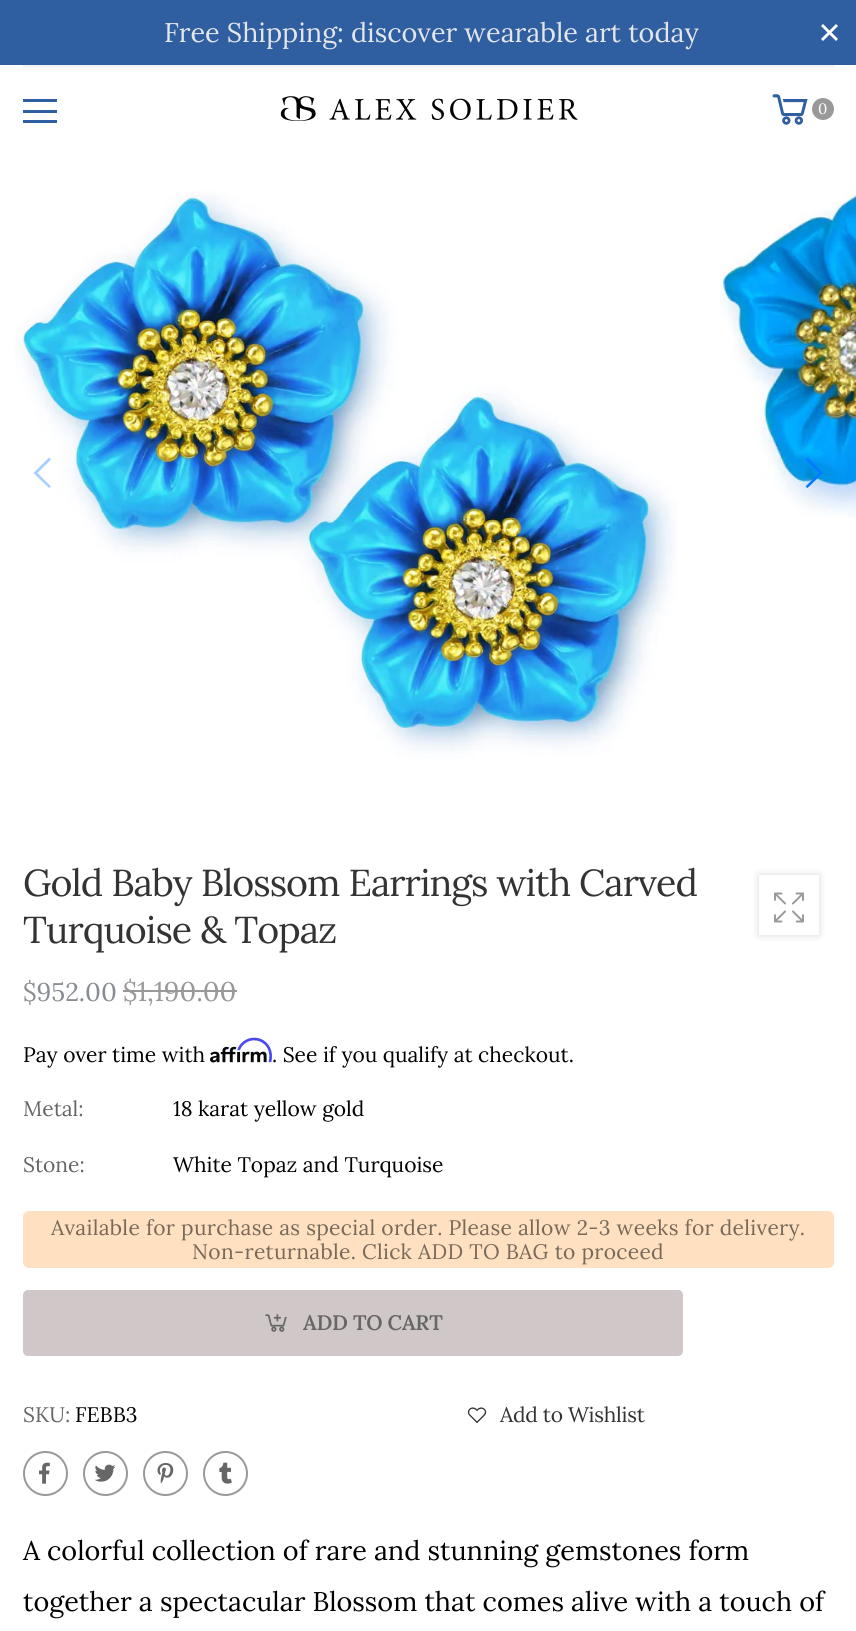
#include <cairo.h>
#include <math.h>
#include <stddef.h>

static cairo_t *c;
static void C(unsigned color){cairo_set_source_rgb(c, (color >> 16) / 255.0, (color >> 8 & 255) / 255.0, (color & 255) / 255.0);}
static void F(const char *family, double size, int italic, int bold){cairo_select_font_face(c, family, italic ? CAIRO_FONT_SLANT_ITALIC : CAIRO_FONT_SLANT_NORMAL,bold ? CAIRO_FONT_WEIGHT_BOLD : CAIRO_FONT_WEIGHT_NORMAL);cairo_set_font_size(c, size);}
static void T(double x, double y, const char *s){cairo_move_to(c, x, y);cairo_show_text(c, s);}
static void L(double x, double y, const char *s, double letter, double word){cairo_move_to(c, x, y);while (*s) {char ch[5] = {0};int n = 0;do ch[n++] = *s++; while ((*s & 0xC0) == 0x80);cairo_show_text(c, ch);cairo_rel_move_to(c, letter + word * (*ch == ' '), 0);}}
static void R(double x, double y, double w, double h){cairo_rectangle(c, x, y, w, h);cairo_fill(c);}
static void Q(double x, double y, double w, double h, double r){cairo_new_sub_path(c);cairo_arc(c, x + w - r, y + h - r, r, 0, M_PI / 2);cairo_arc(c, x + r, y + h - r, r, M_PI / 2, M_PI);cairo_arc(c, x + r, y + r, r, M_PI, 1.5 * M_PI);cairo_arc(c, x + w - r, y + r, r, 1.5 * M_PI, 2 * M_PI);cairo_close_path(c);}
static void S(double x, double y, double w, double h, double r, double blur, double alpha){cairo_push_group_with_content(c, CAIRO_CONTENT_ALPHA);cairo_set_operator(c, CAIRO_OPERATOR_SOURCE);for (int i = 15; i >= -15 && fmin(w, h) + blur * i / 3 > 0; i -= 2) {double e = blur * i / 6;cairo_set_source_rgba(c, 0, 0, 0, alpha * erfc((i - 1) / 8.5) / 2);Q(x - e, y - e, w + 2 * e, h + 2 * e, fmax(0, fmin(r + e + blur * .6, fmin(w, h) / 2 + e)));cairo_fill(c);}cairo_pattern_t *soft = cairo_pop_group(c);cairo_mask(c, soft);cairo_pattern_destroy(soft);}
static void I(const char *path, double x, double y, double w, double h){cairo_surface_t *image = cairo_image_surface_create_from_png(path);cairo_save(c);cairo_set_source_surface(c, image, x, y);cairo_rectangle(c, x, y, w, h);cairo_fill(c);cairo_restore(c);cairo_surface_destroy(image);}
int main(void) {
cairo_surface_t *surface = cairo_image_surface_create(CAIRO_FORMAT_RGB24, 856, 1631);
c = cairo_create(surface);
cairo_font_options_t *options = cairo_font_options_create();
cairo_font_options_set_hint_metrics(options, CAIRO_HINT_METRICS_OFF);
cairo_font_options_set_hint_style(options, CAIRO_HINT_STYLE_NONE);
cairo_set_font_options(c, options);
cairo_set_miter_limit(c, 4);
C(0xffffff);
cairo_paint(c);
C(0x305fa1);
R(0,0,856,65);
F("Lora",27,0,0);
C(0xe3e6ea);
T(164,42,"Free Shipping: discover wearable art today");
C(0xffffff);
cairo_new_path(c);
cairo_move_to(c,823,24);
cairo_line_to(c,838,39);
cairo_line_to(c,836,41);
cairo_line_to(c,821,26);
cairo_close_path(c);
cairo_fill(c);
cairo_new_path(c);
cairo_move_to(c,821,39);
cairo_line_to(c,836,24);
cairo_line_to(c,838,26);
cairo_line_to(c,823,41);
cairo_close_path(c);
cairo_fill(c);
C(0xeff1f3);
R(23,65,811,2);
C(0x305fa1);
R(23,99,34,3);
R(23,110,34,3);
R(23,120,34,3);
I("1.png",280,96,298,25);
I("2.png",772,94,36,31);
C(0x999999);
cairo_arc(c,823,109,11,0,2 * M_PI);
cairo_fill(c);
F("Lora",15,0,0);
C(0xffffff);
T(818,114,"0");
I("3.png",14,191,663,568);
I("4.png",720,190,136,328);
C(0xa6d0ff);
cairo_new_path(c);
cairo_move_to(c,49,457.5);
cairo_line_to(c,51,459.5);
cairo_line_to(c,37.5,473);
cairo_line_to(c,51,486.5);
cairo_line_to(c,49,488);
cairo_line_to(c,33.5,473);
cairo_close_path(c);
cairo_fill(c);
C(0x007aff);
cairo_new_path(c);
cairo_move_to(c,807.5,457.5);
cairo_line_to(c,823,473);
cairo_line_to(c,807.5,488);
cairo_line_to(c,805.5,486.5);
cairo_line_to(c,819,473);
cairo_line_to(c,805.5,459.5);
cairo_close_path(c);
cairo_fill(c);
C(0x000000);
S(759,875,60,60,0,4,.15);
C(0xffffff);
R(759,875,60,60);
I("5.png",774,892,30,31);
F("Lora",37.5,0,0);
C(0x333333);
L(23,896,"Gold Baby Blossom Earrings with Carved",-.95,0);
L(23,943,"Turquoise & Topaz",-.95,0);
F("Lora",25.5,0,0);
C(0x888d94);
T(23,1001,"$952.00");
F("Lora",27,0,0);
C(0x999999);
T(123,1001,"$1,190.00");
R(123,990,114,2);
F("Lora",21,0,0);
C(0x000000);
T(23,1062,"Pay over time with");
I("7.png",210,1046,57,17);
I("6.png",237,1037,35,26);
T(272,1062,". See if you qualify at checkout.");
C(0x666666);
T(23,1116,"Metal:");
C(0x000000);
T(173,1116,"18 karat yellow gold");
C(0x666666);
T(23,1172,"Stone:");
C(0x000000);
T(173,1172,"White Topaz and Turquoise");
C(0xffe0c0);
Q(23,1211,811,57,6);
cairo_fill(c);
C(0x78695a);
L(51,1235,"Available for purchase as special order. Please allow 2-3 weeks for delivery.",.3,0);
L(192,1259,"Non-returnable. Click ADD TO BAG to proceed",.3,0);
C(0xd0c8c8);
Q(23,1290,660,66,5);
cairo_fill(c);
I("8.png",265,1314,22,18);
F("Lora SemiBold",21,0,0);
C(0x666666);
L(303,1330,"ADD TO CART",-.25,0);
F("Lora",21,0,0);
T(23,1422,"SKU:");
C(0x000000);
T(75,1422,"FEBB3");
I("9.png",467,1407,20,17);
C(0x333333);
L(500,1422,"Add to Wishlist",-.25,0);
cairo_new_path(c);
cairo_arc(c,45.5,1473.5,21.5,0,2 * M_PI);
C(0x999999);
cairo_stroke(c);
I("10.png",39,1462,11,22);
cairo_arc(c,105.5,1473.5,21.5,0,2 * M_PI);
cairo_stroke(c);
I("11.png",94,1464,22,18);
cairo_arc(c,165.5,1473.5,21.5,0,2 * M_PI);
cairo_stroke(c);
I("12.png",157,1462,17,22);
cairo_arc(c,225.5,1473.5,21.5,0,2 * M_PI);
cairo_stroke(c);
I("13.png",219,1462,13,22);
F("Lora",27,0,0);
C(0x000000);
T(23,1560,"A colorful collection of rare and stunning gemstones form");
T(23,1611,"together a spectacular Blossom that comes alive with a touch of");
cairo_surface_write_to_png(surface, "o.png");
cairo_font_options_destroy(options);
cairo_destroy(c);
cairo_surface_destroy(surface);
return 0;
}
